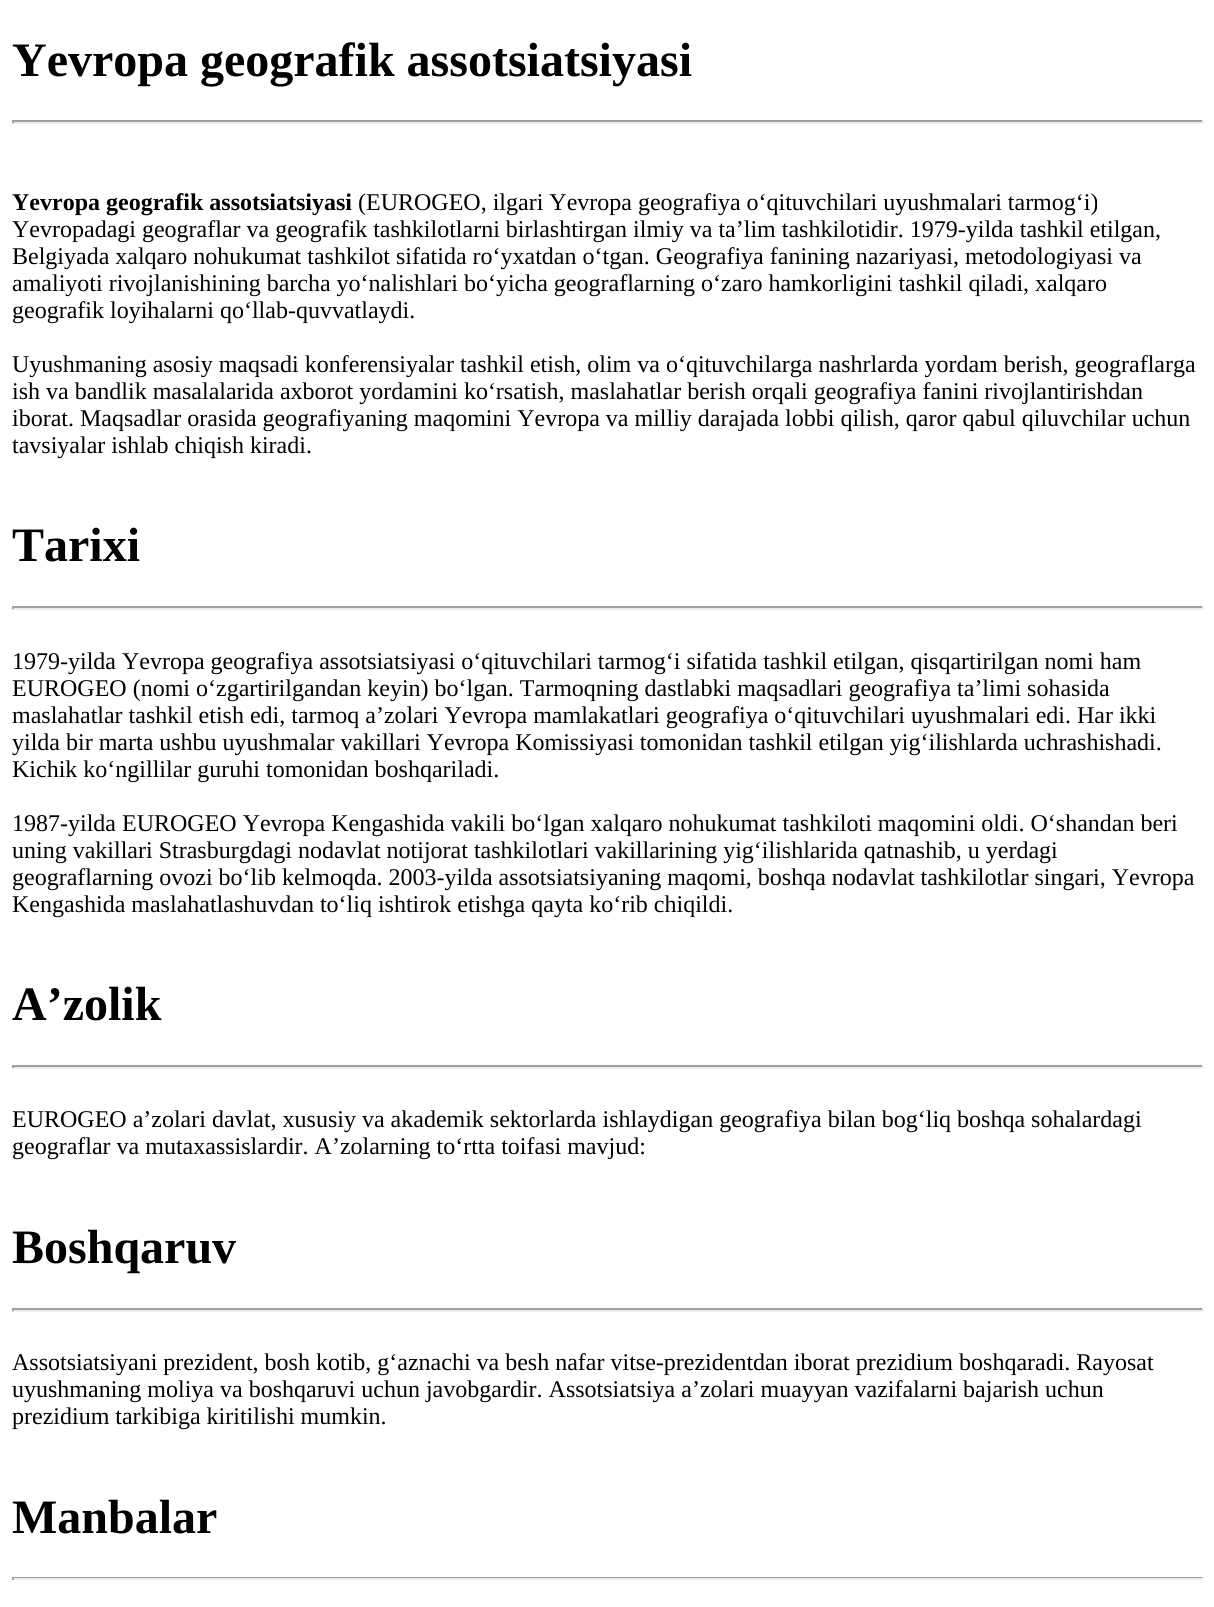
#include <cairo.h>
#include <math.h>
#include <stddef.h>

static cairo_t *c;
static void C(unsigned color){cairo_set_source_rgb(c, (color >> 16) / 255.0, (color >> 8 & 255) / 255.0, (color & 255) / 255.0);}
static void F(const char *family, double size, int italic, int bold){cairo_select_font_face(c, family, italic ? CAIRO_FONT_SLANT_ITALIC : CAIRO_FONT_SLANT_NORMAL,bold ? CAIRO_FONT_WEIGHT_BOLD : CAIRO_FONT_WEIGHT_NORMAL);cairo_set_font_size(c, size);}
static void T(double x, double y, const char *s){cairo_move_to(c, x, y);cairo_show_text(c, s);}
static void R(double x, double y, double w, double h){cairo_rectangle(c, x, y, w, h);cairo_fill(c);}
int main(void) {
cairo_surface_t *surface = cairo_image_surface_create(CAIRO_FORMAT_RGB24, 1214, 1607);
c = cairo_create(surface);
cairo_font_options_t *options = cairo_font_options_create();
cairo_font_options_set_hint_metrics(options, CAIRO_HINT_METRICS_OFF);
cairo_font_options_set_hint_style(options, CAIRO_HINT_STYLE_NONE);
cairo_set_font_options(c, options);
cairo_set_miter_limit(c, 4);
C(0xffffff);
cairo_paint(c);
F("Liberation Serif",48,0,1);
C(0x000000);
T(12,76,"Yevropa geografik assotsiatsiyasi");
C(0x9f9f9f);
R(12,120,1191,2);
C(0xeeeeee);
R(1202,120,2,3);
R(12,122,1191,2);
C(0x9f9f9f);
R(12,120,2,3);
F("Liberation Serif",24,0,1);
C(0x000000);
T(12,210,"Yevropa geografik assotsiatsiyasi");
F("Liberation Serif",24,0,0);
T(358,210,"(EUROGEO, ilgari Yevropa geografiya oʻqituvchilari uyushmalari tarmogʻi)");
T(12,237,"Yevropadagi geograflar va geografik tashkilotlarni birlashtirgan ilmiy va taʼlim tashkilotidir. 1979-yilda tashkil etilgan,");
T(12,264,"Belgiyada xalqaro nohukumat tashkilot sifatida roʻyxatdan oʻtgan. Geografiya fanining nazariyasi, metodologiyasi va");
T(12,291,"amaliyoti rivojlanishining barcha yo‘nalishlari bo‘yicha geograflarning o‘zaro hamkorligini tashkil qiladi, xalqaro");
T(12,318,"geografik loyihalarni qo‘llab-quvvatlaydi.");
T(12,372,"Uyushmaning asosiy maqsadi konferensiyalar tashkil etish, olim va oʻqituvchilarga nashrlarda yordam berish, geograflarga");
T(12,399,"ish va bandlik masalalarida axborot yordamini koʻrsatish, maslahatlar berish orqali geografiya fanini rivojlantirishdan");
T(12,426,"iborat. Maqsadlar orasida geografiyaning maqomini Yevropa va milliy darajada lobbi qilish, qaror qabul qiluvchilar uchun");
T(12,453,"tavsiyalar ishlab chiqish kiradi.");
F("Liberation Serif",48,0,1);
T(12,561,"Tarixi");
C(0x9f9f9f);
R(12,606,1191,2);
C(0xeeeeee);
R(1202,606,2,3);
R(12,608,1191,2);
C(0x9f9f9f);
R(12,606,2,3);
F("Liberation Serif",24,0,0);
C(0x000000);
T(12,669,"1979-yilda Yevropa geografiya assotsiatsiyasi o‘qituvchilari tarmog‘i sifatida tashkil etilgan, qisqartirilgan nomi ham");
T(12,696,"EUROGEO (nomi o‘zgartirilgandan keyin) bo‘lgan. Tarmoqning dastlabki maqsadlari geografiya taʼlimi sohasida");
T(12,723,"maslahatlar tashkil etish edi, tarmoq aʼzolari Yevropa mamlakatlari geografiya oʻqituvchilari uyushmalari edi. Har ikki");
T(12,750,"yilda bir marta ushbu uyushmalar vakillari Yevropa Komissiyasi tomonidan tashkil etilgan yigʻilishlarda uchrashishadi.");
T(12,777,"Kichik koʻngillilar guruhi tomonidan boshqariladi.");
T(12,831,"1987-yilda EUROGEO Yevropa Kengashida vakili boʻlgan xalqaro nohukumat tashkiloti maqomini oldi. Oʻshandan beri");
T(12,858,"uning vakillari Strasburgdagi nodavlat notijorat tashkilotlari vakillarining yigʻilishlarida qatnashib, u yerdagi");
T(12,885,"geograflarning ovozi boʻlib kelmoqda. 2003-yilda assotsiatsiyaning maqomi, boshqa nodavlat tashkilotlar singari, Yevropa");
T(12,912,"Kengashida maslahatlashuvdan toʻliq ishtirok etishga qayta koʻrib chiqildi.");
F("Liberation Serif",48,0,1);
T(12,1020,"Aʼzolik");
C(0x9f9f9f);
R(12,1065,1191,2);
C(0xeeeeee);
R(1202,1065,2,3);
R(12,1067,1191,2);
C(0x9f9f9f);
R(12,1065,2,3);
F("Liberation Serif",24,0,0);
C(0x000000);
T(12,1127,"EUROGEO aʼzolari davlat, xususiy va akademik sektorlarda ishlaydigan geografiya bilan bogʻliq boshqa sohalardagi");
T(12,1154,"geograflar va mutaxassislardir. Aʼzolarning toʻrtta toifasi mavjud:");
F("Liberation Serif",48,0,1);
T(12,1263,"Boshqaruv");
C(0x9f9f9f);
R(12,1308,1191,2);
C(0xeeeeee);
R(1202,1308,2,3);
R(12,1310,1191,2);
C(0x9f9f9f);
R(12,1308,2,3);
F("Liberation Serif",24,0,0);
C(0x000000);
T(12,1370,"Assotsiatsiyani prezident, bosh kotib, gʻaznachi va besh nafar vitse-prezidentdan iborat prezidium boshqaradi. Rayosat");
T(12,1397,"uyushmaning moliya va boshqaruvi uchun javobgardir. Assotsiatsiya aʼzolari muayyan vazifalarni bajarish uchun");
T(12,1424,"prezidium tarkibiga kiritilishi mumkin.");
F("Liberation Serif",48,0,1);
T(12,1533,"Manbalar");
C(0x9f9f9f);
R(12,1577,1191,1);
C(0xeeeeee);
R(1202,1577,2,3);
R(12,1578,1191,2);
C(0x9f9f9f);
R(12,1577,2,3);
cairo_surface_write_to_png(surface, "o.png");
cairo_font_options_destroy(options);
cairo_destroy(c);
cairo_surface_destroy(surface);
return 0;
}
